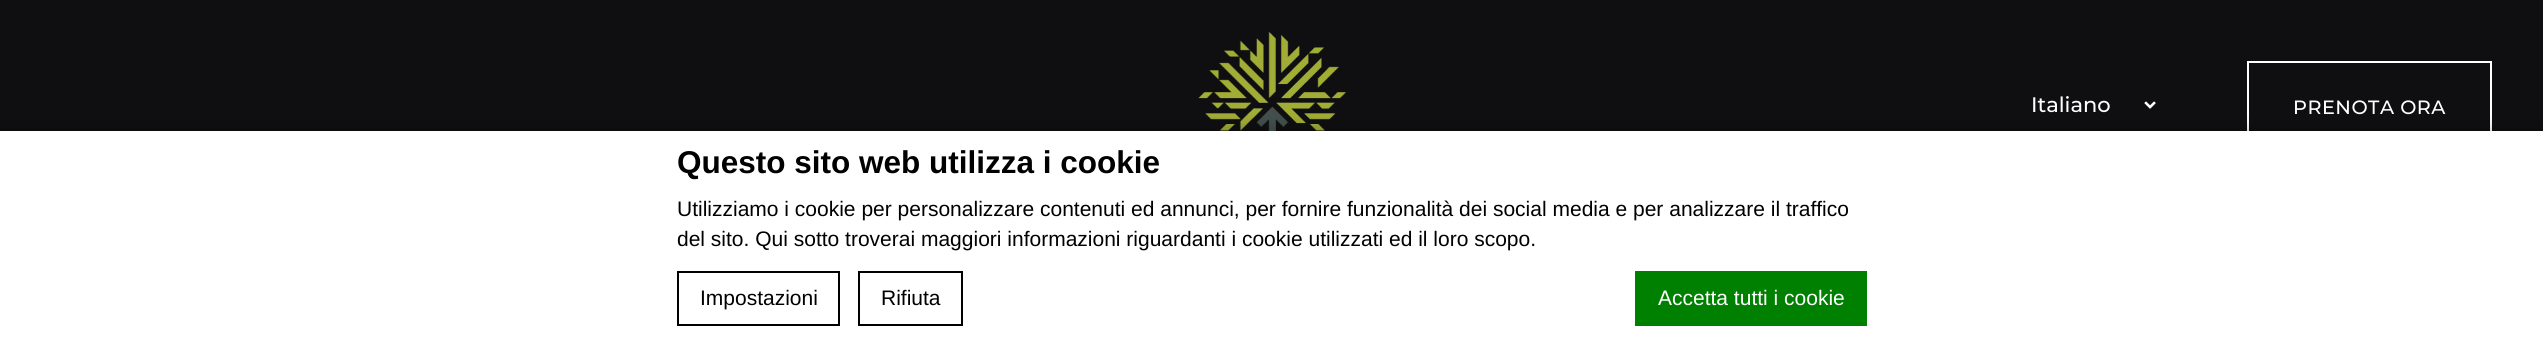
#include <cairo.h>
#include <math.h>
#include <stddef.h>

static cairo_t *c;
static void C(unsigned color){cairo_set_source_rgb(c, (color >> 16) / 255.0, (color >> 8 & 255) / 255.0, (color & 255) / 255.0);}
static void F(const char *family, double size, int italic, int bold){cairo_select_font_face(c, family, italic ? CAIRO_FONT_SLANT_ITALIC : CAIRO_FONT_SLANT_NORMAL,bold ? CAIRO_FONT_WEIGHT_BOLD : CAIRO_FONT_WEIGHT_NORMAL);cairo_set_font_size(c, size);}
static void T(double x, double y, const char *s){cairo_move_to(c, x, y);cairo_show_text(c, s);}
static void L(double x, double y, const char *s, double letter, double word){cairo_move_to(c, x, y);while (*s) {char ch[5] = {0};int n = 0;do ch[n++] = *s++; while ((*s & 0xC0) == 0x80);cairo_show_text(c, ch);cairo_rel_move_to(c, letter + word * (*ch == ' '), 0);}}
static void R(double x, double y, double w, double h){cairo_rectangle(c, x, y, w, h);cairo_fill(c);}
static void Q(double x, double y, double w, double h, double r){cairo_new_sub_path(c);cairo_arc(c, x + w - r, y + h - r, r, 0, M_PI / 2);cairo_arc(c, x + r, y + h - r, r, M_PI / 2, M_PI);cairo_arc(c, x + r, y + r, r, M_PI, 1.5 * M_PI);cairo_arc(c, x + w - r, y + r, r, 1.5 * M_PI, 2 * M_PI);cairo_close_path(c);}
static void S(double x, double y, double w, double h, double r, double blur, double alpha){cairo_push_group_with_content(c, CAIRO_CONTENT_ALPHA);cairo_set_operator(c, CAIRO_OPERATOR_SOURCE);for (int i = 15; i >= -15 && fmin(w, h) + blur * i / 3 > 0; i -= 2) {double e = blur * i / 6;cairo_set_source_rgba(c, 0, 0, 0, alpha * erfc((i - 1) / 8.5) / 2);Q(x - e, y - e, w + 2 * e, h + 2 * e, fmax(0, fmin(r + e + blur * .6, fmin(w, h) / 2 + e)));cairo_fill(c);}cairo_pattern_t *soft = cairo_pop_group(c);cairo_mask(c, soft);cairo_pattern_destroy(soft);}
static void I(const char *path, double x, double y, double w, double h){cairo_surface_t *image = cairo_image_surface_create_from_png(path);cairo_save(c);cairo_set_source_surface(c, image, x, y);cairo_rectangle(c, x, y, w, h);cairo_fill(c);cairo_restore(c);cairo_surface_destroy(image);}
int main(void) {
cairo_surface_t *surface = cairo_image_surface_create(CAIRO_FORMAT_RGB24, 2543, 343);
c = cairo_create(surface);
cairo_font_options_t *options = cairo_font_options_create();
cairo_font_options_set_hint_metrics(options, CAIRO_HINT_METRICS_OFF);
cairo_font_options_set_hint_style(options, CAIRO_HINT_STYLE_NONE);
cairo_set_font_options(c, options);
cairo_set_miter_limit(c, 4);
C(0x0f0e10);
cairo_paint(c);
I("1.png",1198,32,149,99);
F("Montserrat Medium",21,0,0);
C(0xffffff);
T(2031,112,"Italiano");
I("2.png",2144,101,12,8);
cairo_rectangle(c,2248,62,243,89);
cairo_stroke(c);
F("Montserrat Medium",19.25,0,0);
L(2293,114,"PRENOTA ORA",.5,0);
C(0x000000);
S(0,131,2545,212,0,9,.3);
C(0xffffff);
R(0,131,2543,212);
F("Liberation Sans",31.5,0,1);
C(0x000000);
T(677,173,"Questo sito web utilizza i cookie");
F("Liberation Sans",21,0,0);
T(677,216,"Utilizziamo i cookie per personalizzare contenuti ed annunci, per fornire funzionalità dei social media e per analizzare il traffico");
T(677,246,"del sito. Qui sotto troverai maggiori informazioni riguardanti i cookie utilizzati ed il loro scopo.");
cairo_rectangle(c,678,272,161,53);
cairo_stroke(c);
T(700,305,"Impostazioni");
cairo_rectangle(c,859,272,103,53);
cairo_stroke(c);
T(881,305,"Rifiuta");
C(0x008000);
R(1635,271,232,55);
C(0xffffff);
T(1658,305,"Accetta tutti i cookie");
cairo_surface_write_to_png(surface, "o.png");
cairo_font_options_destroy(options);
cairo_destroy(c);
cairo_surface_destroy(surface);
return 0;
}
